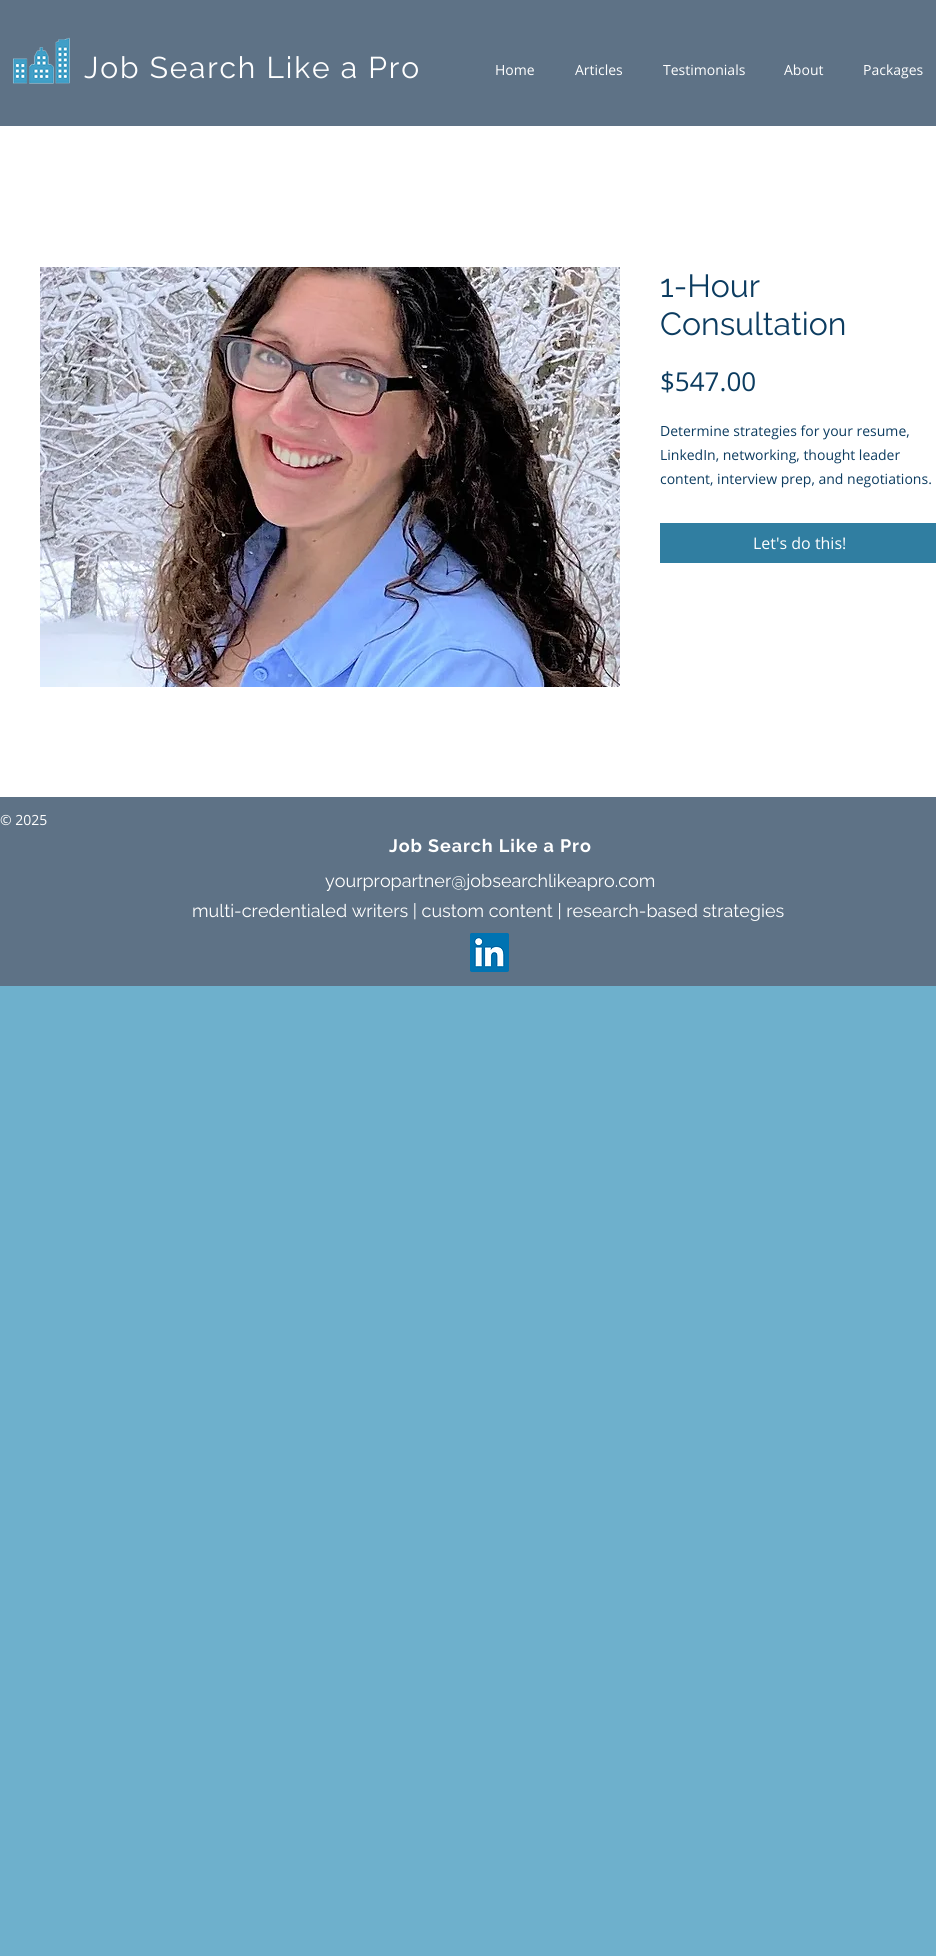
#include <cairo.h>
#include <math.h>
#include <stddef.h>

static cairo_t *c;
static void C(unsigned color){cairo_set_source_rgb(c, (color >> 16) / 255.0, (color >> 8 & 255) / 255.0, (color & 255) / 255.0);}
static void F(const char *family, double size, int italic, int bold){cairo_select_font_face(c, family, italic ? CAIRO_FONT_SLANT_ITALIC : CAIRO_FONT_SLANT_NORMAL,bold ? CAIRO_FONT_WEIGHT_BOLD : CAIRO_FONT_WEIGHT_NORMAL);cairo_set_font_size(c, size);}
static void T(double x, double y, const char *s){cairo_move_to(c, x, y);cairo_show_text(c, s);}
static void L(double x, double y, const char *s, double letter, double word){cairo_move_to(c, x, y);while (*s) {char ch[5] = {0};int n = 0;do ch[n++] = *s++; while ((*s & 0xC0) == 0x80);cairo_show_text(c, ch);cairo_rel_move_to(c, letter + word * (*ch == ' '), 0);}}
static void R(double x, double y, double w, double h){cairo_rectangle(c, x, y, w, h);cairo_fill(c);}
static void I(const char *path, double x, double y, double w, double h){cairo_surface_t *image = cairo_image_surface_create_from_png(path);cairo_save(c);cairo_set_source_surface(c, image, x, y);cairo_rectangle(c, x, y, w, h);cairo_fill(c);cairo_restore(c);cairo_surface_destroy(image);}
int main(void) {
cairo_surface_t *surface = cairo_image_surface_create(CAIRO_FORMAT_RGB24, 936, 1956);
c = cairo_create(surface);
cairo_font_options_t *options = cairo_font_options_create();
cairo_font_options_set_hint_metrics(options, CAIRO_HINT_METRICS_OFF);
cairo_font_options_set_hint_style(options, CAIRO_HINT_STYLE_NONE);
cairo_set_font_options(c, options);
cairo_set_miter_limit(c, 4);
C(0x6eb0cc);
cairo_paint(c);
C(0x5e7286);
R(0,0,936,126);
I("1.png",13,37,57,47);
F("Raleway",30,0,0);
C(0xffffff);
L(84,78,"Job Search Like a Pro",1.8,0);
F("Open Sans",14,0,0);
T(495,75,"Home");
T(575,75,"Articles");
T(663,75,"Testimonials");
T(784,75,"About");
T(863,75,"Packages");
R(0,126,936,671);
I("2.png",40,267,580,420);
F("Raleway",32,0,0);
C(0x0c3c60);
T(660,297,"1-Hour");
T(660,335,"Consultation");
F("Open Sans",26,0,0);
T(660,391,"$547.00");
F("Open Sans",14,0,0);
T(660,436,"Determine strategies for your resume,");
T(660,460,"LinkedIn, networking, thought leader");
T(660,484,"content, interview prep, and negotiations.");
C(0x307ea1);
R(660,523,276,40);
F("Open Sans",16,0,0);
C(0xffffff);
T(753,549,"Let's do this!");
C(0x5e7286);
R(0,797,936,189);
F("Open Sans",14,0,0);
C(0xffffff);
T(0,825,"© 2025");
F("Raleway",18,0,1);
L(389,852,"Job Search Like a Pro",.9,0);
F("Raleway",18,0,0);
T(325,887,"yourpropartner@jobsearchlikeapro.com");
T(192,917,"multi-credentialed writers | custom content | research-based strategies");
I("3.png",470,933,39,39);
cairo_surface_write_to_png(surface, "o.png");
cairo_font_options_destroy(options);
cairo_destroy(c);
cairo_surface_destroy(surface);
return 0;
}
